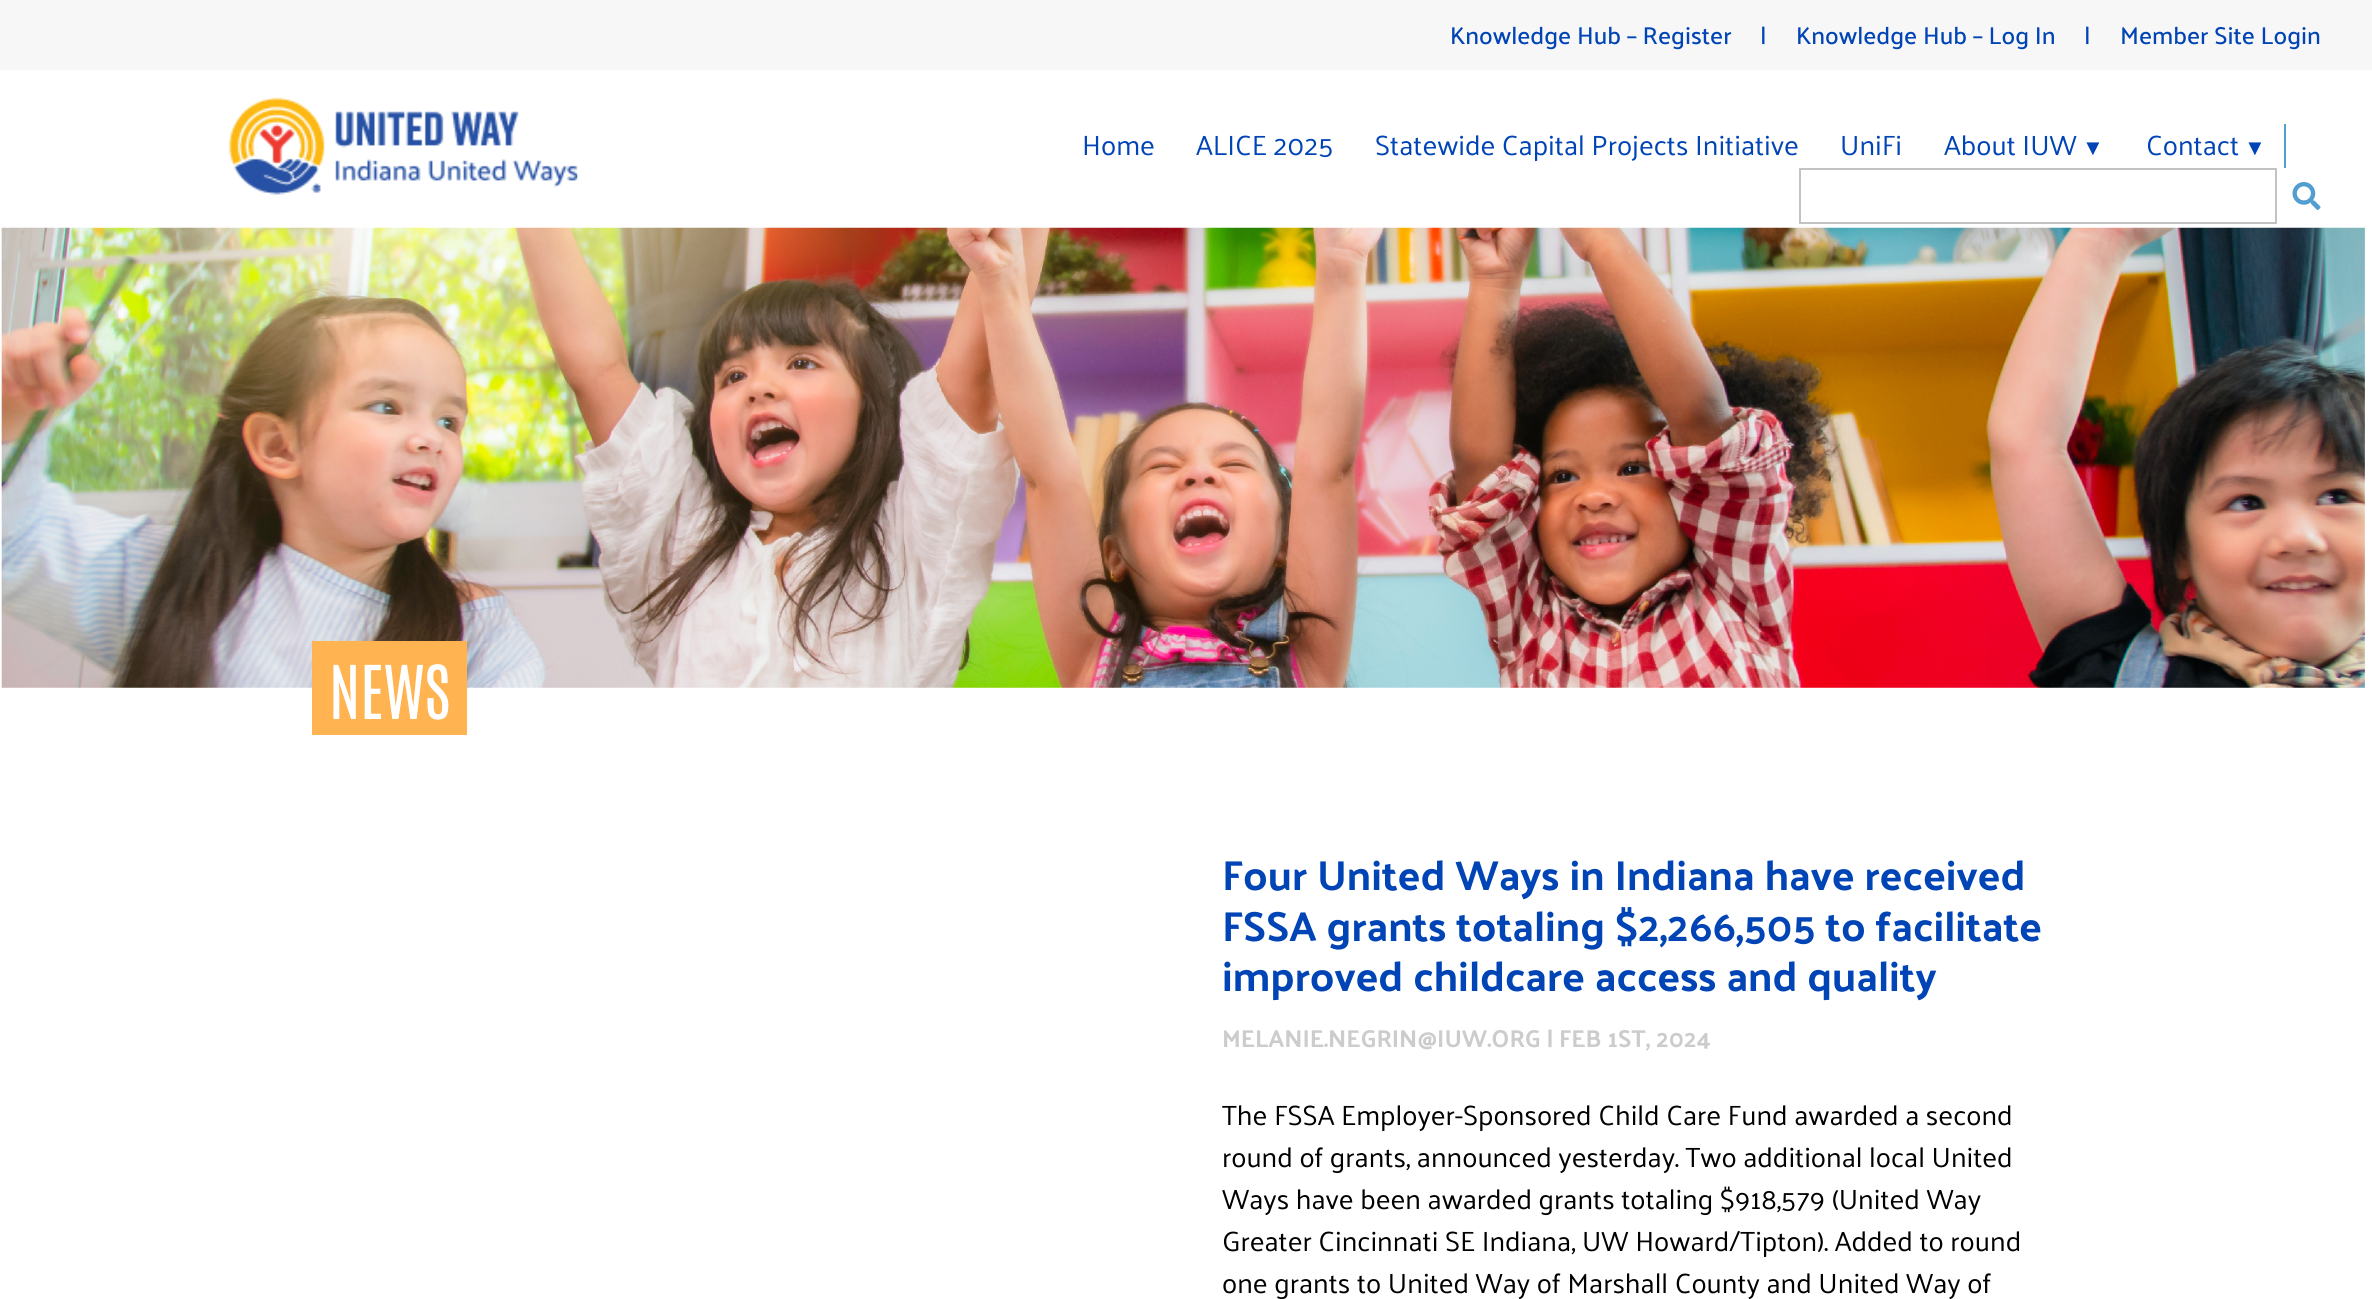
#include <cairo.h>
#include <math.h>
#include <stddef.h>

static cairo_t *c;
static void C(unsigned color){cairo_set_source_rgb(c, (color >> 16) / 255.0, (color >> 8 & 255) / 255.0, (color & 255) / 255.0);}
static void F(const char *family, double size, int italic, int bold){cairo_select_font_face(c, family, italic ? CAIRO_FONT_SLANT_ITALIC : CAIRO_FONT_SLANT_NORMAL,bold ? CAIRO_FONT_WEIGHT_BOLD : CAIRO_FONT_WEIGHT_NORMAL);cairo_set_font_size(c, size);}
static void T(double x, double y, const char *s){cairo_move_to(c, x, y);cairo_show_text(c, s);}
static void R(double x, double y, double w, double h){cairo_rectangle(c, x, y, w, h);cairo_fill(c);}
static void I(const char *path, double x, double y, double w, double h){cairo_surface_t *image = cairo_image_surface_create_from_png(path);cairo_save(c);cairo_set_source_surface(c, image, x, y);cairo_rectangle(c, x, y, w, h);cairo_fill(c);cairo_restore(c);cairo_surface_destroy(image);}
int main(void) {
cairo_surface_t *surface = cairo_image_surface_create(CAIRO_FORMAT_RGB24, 2372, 1299);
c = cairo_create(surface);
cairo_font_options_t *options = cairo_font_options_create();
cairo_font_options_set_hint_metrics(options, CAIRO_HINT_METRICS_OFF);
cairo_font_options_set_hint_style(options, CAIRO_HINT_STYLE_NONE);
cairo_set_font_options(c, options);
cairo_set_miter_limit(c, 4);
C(0xffffff);
cairo_paint(c);
C(0xf7f7f7);
R(0,0,2372,70);
F("Palanquin Medium",24.5,0,0);
C(0x0044b5);
T(1450,44,"Knowledge Hub – Register");
T(1760,44,"|");
T(1796,44,"Knowledge Hub – Log In");
T(2084,44,"|");
T(2120,44,"Member Site Login");
I("1.png",228,97,350,98);
C(0x539ed0);
R(2284,124,2,44);
F("Palanquin",28,0,0);
C(0x0044b5);
T(1082,155,"Home");
T(1196,155,"ALICE 2025");
T(1375,155,"Statewide Capital Projects Initiative");
T(1840,155,"UniFi");
T(1944,155,"About IUW");
F("Liberation Serif",22,0,0);
T(2082,155,"▼");
F("Palanquin",28,0,0);
T(2146,155,"Contact");
F("Liberation Serif",22,0,0);
T(2244,155,"▼");
cairo_rectangle(c,1800,169,476,54);
C(0xc3c3c3);
cairo_stroke(c);
I("2.png",2292,182,29,28);
I("3.png",1,227,2364,461);
C(0xffb351);
R(312,641,155,94);
F("Antonio",63,0,0);
C(0xffffff);
T(329,719,"NEWS");
F("Palanquin",42,0,1);
C(0x0044b5);
T(1222,890,"Four United Ways in Indiana have received");
T(1222,941,"FSSA grants totaling $2,266,505 to facilitate");
T(1222,991,"improved childcare access and quality");
F("Palanquin",24.5,0,1);
C(0xcccccc);
T(1222,1047,"MELANIE.NEGRIN@IUW.ORG | FEB 1ST, 2024");
F("Palanquin",28,0,0);
C(0x000000);
T(1222,1125,"The FSSA Employer-Sponsored Child Care Fund awarded a second");
T(1222,1167,"round of grants, announced yesterday. Two additional local United");
T(1222,1209,"Ways have been awarded grants totaling $918,579 (United Way");
T(1222,1251,"Greater Cincinnati SE Indiana, UW Howard/Tipton). Added to round");
T(1222,1293,"one grants to United Way of Marshall County and United Way of");
cairo_surface_write_to_png(surface, "o.png");
cairo_font_options_destroy(options);
cairo_destroy(c);
cairo_surface_destroy(surface);
return 0;
}
